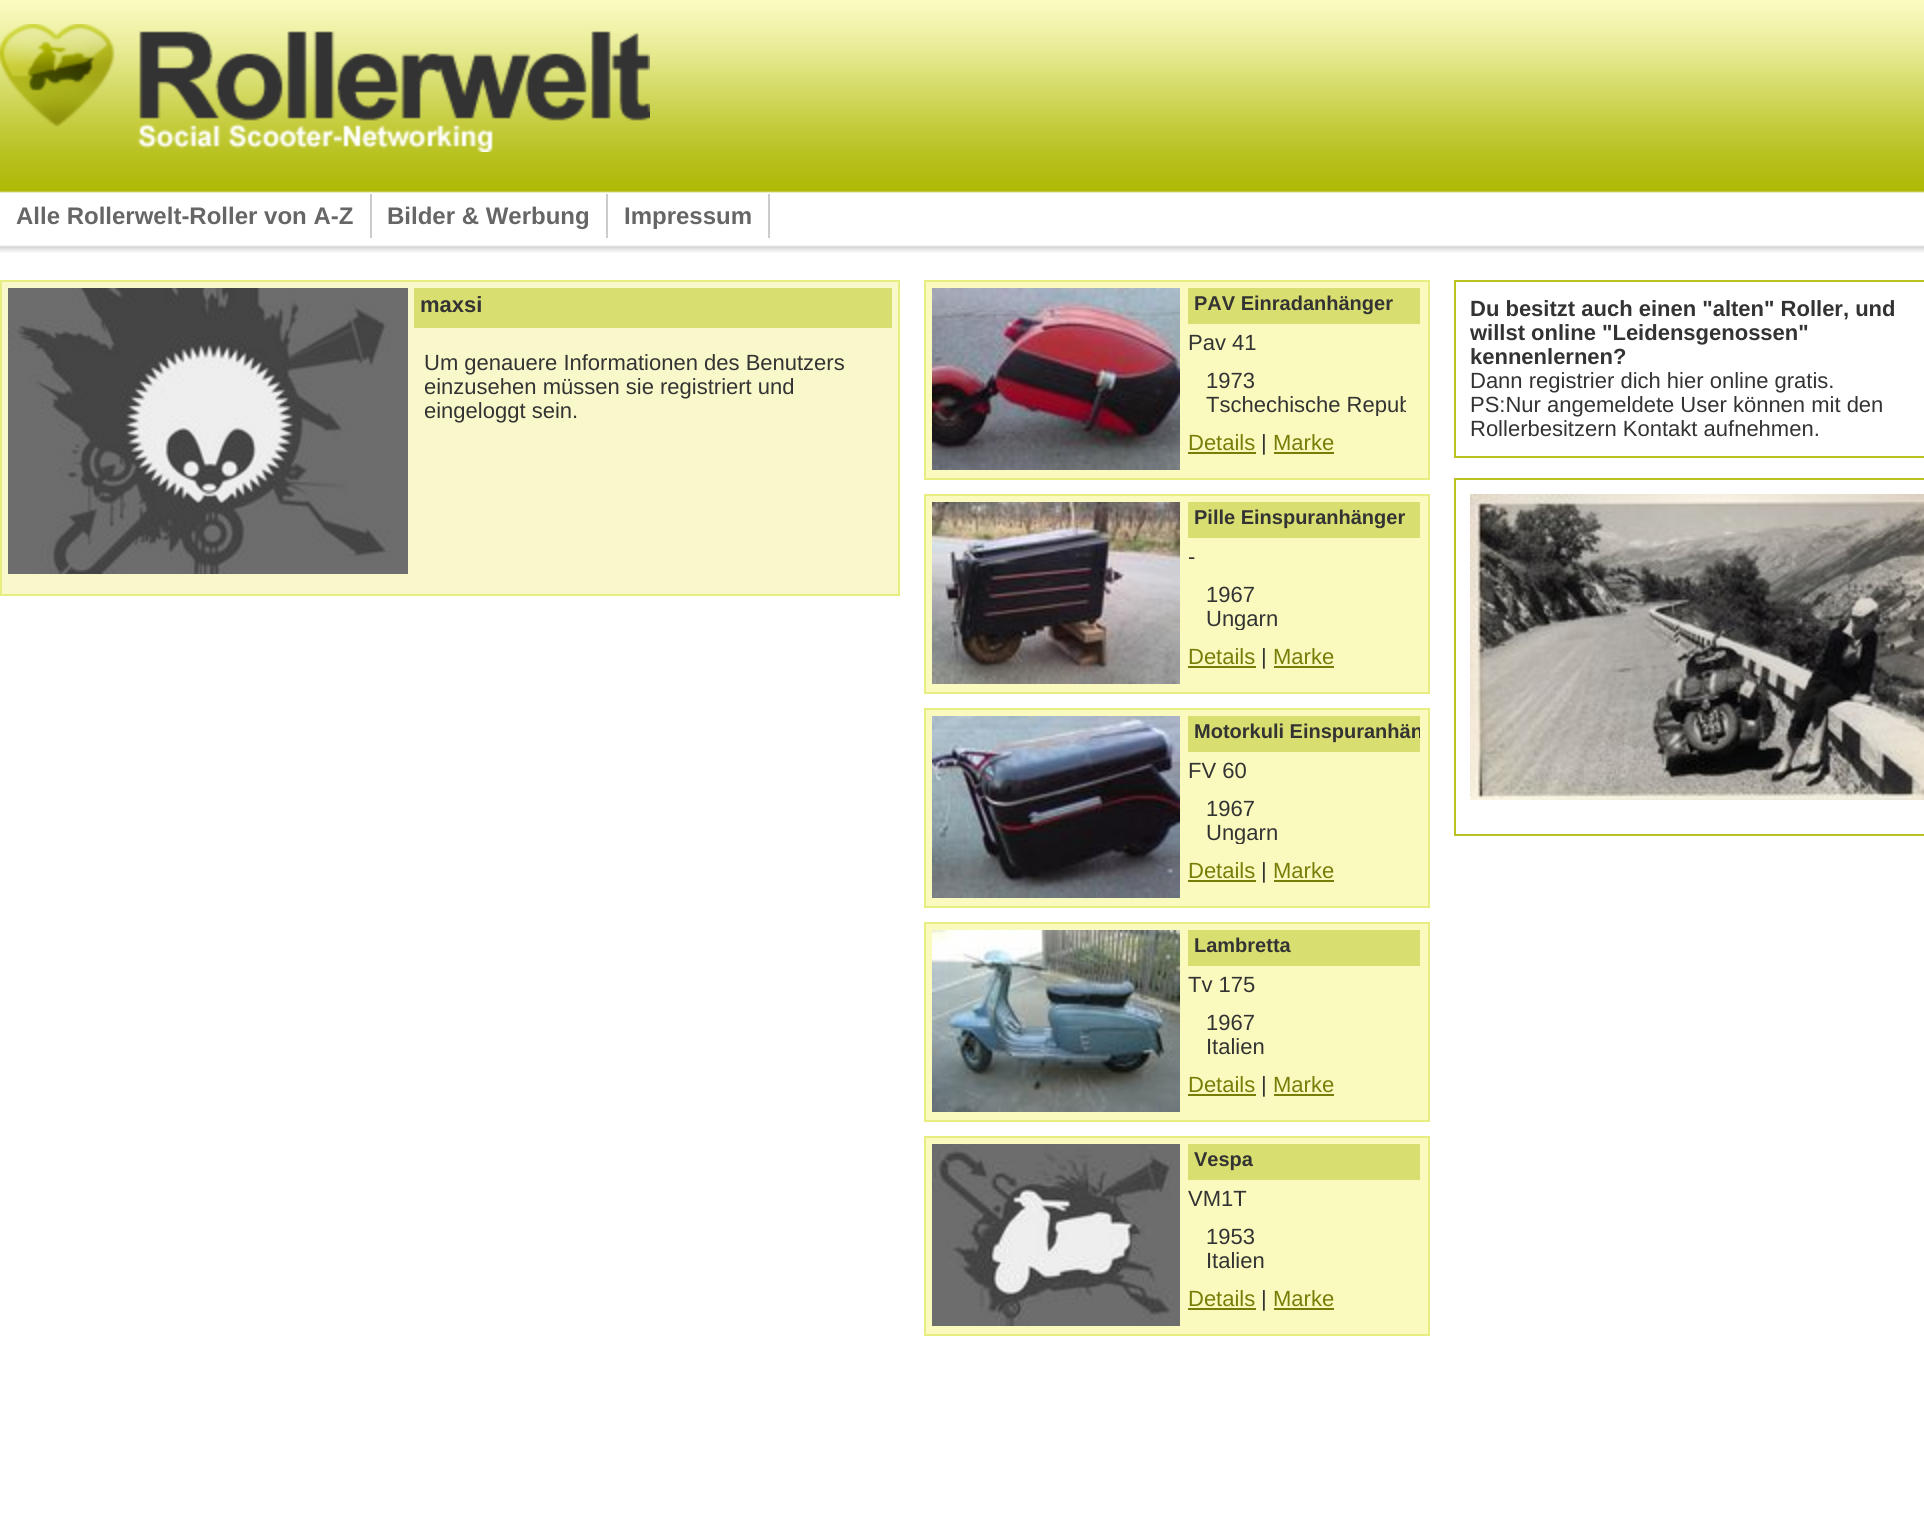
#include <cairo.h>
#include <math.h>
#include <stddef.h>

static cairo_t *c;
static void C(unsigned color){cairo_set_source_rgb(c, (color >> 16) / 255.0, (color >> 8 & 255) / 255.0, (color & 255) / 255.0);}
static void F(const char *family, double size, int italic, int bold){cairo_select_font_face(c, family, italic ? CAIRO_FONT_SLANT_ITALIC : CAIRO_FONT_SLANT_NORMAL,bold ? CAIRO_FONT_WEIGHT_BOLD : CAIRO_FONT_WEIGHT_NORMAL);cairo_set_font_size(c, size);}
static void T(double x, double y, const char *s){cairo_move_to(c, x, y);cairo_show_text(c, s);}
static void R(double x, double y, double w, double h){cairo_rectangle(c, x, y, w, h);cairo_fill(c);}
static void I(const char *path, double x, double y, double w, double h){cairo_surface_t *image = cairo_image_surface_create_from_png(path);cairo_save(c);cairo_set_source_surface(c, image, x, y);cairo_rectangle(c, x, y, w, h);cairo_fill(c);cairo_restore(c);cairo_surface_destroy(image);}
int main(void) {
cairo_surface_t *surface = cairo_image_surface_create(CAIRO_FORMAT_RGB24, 1924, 1529);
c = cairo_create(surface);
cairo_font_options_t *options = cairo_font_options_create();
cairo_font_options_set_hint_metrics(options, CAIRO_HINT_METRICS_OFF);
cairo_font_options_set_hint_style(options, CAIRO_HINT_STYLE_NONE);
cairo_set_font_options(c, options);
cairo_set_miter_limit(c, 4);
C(0xffffff);
cairo_paint(c);
I("1.png",0,0,1924,253);
I("2.png",0,24,650,128);
C(0xcccccc);
R(370,194,2,44);
F("Liberation Sans",24,0,1);
C(0x666666);
T(16,224,"Alle Rollerwelt-Roller von A-Z");
C(0xcccccc);
R(606,194,2,44);
C(0x666666);
T(387,224,"Bilder & Werbung");
C(0xcccccc);
R(768,194,2,44);
C(0x666666);
T(624,224,"Impressum");
C(0xf8f8ca);
cairo_rectangle(c,1,281,898,314);
cairo_fill_preserve(c);
C(0xe8ed82);
cairo_stroke(c);
I("3.png",8,288,400,286);
C(0xd9de70);
R(414,288,478,40);
F("Liberation Sans",22,0,1);
C(0x333333);
T(420,312,"maxsi");
F("Liberation Sans",22,0,0);
T(424,370,"Um genauere Informationen des Benutzers");
T(424,394,"einzusehen müssen sie registriert und");
T(424,418,"eingeloggt sein.");
C(0xfafabf);
cairo_rectangle(c,925,281,504,198);
cairo_fill_preserve(c);
C(0xe8ed82);
cairo_stroke(c);
I("4.png",932,288,248,182);
C(0xd9de70);
R(1188,288,232,36);
F("Liberation Sans",20,0,1);
C(0x333333);
T(1194,310,"PAV Einradanhänger");
F("Liberation Sans",22,0,0);
T(1188,350,"Pav 41");
T(1206,388,"1973");
cairo_save(c);
cairo_rectangle(c,1206,392,200,24);
cairo_clip(c);
T(1206,412,"Tschechische Repub");
cairo_restore(c);
C(0x777e08);
T(1188,450,"Details");
R(1188,452,68,2);
C(0x333333);
T(1261,450,"|");
C(0x777e08);
T(1273,450,"Marke");
R(1274,452,60,2);
C(0xfafabf);
cairo_rectangle(c,925,495,504,198);
cairo_fill_preserve(c);
C(0xe8ed82);
cairo_stroke(c);
I("5.png",932,502,248,182);
C(0xd9de70);
R(1188,502,232,36);
F("Liberation Sans",20,0,1);
C(0x333333);
T(1194,524,"Pille Einspuranhänger");
F("Liberation Sans",22,0,0);
T(1188,564,"-");
T(1206,602,"1967");
cairo_save(c);
cairo_rectangle(c,1206,606,200,24);
cairo_clip(c);
T(1206,626,"Ungarn");
cairo_restore(c);
C(0x777e08);
T(1188,664,"Details");
R(1188,666,68,2);
C(0x333333);
T(1261,664,"|");
C(0x777e08);
T(1273,664,"Marke");
R(1274,666,60,2);
C(0xfafabf);
cairo_rectangle(c,925,709,504,198);
cairo_fill_preserve(c);
C(0xe8ed82);
cairo_stroke(c);
I("6.png",932,716,248,182);
C(0xd9de70);
R(1188,716,232,36);
cairo_save(c);
cairo_rectangle(c,1188,716,232,182);
cairo_clip(c);
F("Liberation Sans",20,0,1);
C(0x333333);
T(1194,738,"Motorkuli Einspuranhän");
cairo_restore(c);
C(0x333333);
T(1188,778,"FV 60");
T(1206,816,"1967");
cairo_save(c);
cairo_rectangle(c,1206,820,200,24);
cairo_clip(c);
T(1206,840,"Ungarn");
cairo_restore(c);
C(0x777e08);
T(1188,878,"Details");
R(1188,880,68,2);
C(0x333333);
T(1261,878,"|");
C(0x777e08);
T(1273,878,"Marke");
R(1274,880,60,2);
C(0xfafabf);
cairo_rectangle(c,925,923,504,198);
cairo_fill_preserve(c);
C(0xe8ed82);
cairo_stroke(c);
I("7.png",932,930,248,182);
C(0xd9de70);
R(1188,930,232,36);
F("Liberation Sans",20,0,1);
C(0x333333);
T(1194,952,"Lambretta");
F("Liberation Sans",22,0,0);
T(1188,992,"Tv 175");
T(1206,1030,"1967");
T(1206,1054,"Italien");
C(0x777e08);
T(1188,1092,"Details");
R(1188,1094,68,2);
C(0x333333);
T(1261,1092,"|");
C(0x777e08);
T(1273,1092,"Marke");
R(1274,1094,60,2);
C(0xfafabf);
cairo_rectangle(c,925,1137,504,198);
cairo_fill_preserve(c);
C(0xe8ed82);
cairo_stroke(c);
I("8.png",932,1144,248,182);
C(0xd9de70);
R(1188,1144,232,36);
F("Liberation Sans",20,0,1);
C(0x333333);
T(1194,1166,"Vespa");
F("Liberation Sans",22,0,0);
T(1188,1206,"VM1T");
T(1206,1244,"1953");
T(1206,1268,"Italien");
C(0x777e08);
T(1188,1306,"Details");
R(1188,1308,68,2);
C(0x333333);
T(1261,1306,"|");
C(0x777e08);
T(1273,1306,"Marke");
R(1274,1308,60,2);
cairo_rectangle(c,1455,281,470,176);
C(0xb9c221);
cairo_stroke(c);
F("Liberation Sans",22,0,1);
C(0x333333);
T(1470,316,"Du besitzt auch einen \"alten\" Roller, und");
T(1470,340,"willst online \"Leidensgenossen\"");
T(1470,364,"kennenlernen?");
F("Liberation Sans",22,0,0);
T(1470,388,"Dann registrier dich hier online gratis.");
T(1470,412,"PS:Nur angemeldete User können mit den");
T(1470,436,"Rollerbesitzern Kontakt aufnehmen.");
cairo_rectangle(c,1455,479,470,356);
C(0xb9c221);
cairo_stroke(c);
I("9.png",1470,494,454,306);
cairo_surface_write_to_png(surface, "o.png");
cairo_font_options_destroy(options);
cairo_destroy(c);
cairo_surface_destroy(surface);
return 0;
}
